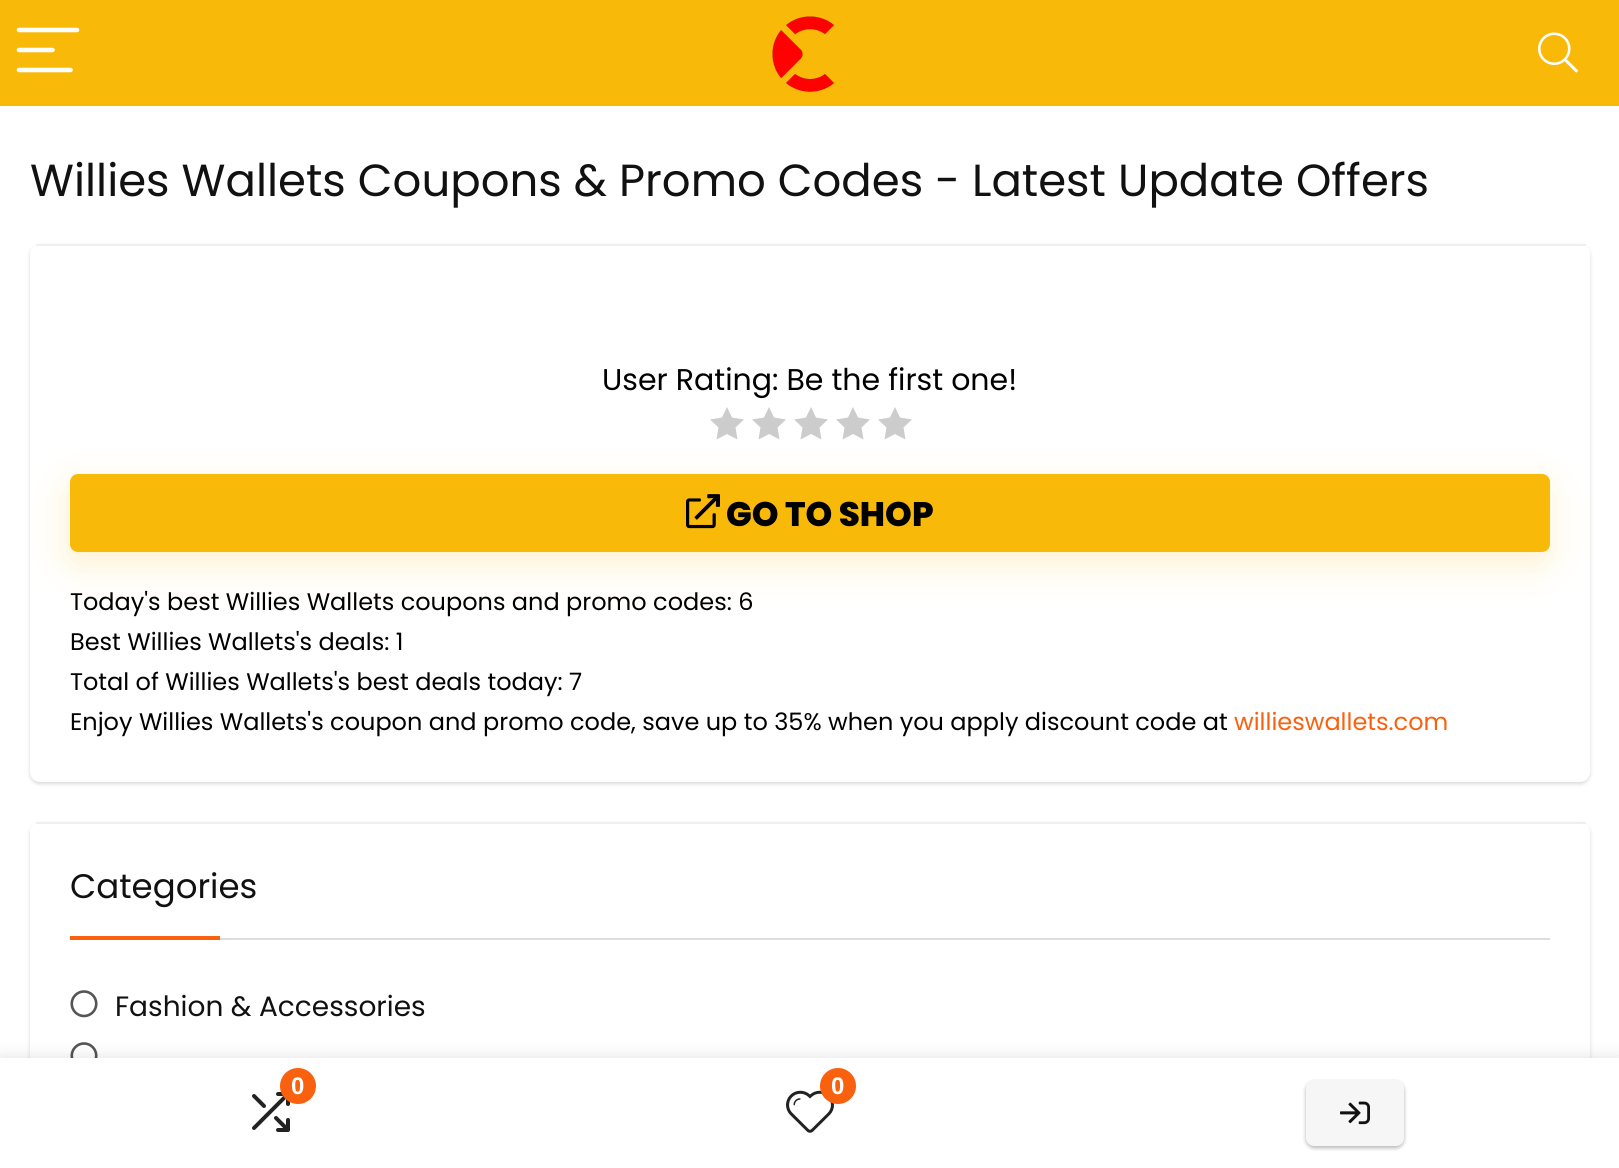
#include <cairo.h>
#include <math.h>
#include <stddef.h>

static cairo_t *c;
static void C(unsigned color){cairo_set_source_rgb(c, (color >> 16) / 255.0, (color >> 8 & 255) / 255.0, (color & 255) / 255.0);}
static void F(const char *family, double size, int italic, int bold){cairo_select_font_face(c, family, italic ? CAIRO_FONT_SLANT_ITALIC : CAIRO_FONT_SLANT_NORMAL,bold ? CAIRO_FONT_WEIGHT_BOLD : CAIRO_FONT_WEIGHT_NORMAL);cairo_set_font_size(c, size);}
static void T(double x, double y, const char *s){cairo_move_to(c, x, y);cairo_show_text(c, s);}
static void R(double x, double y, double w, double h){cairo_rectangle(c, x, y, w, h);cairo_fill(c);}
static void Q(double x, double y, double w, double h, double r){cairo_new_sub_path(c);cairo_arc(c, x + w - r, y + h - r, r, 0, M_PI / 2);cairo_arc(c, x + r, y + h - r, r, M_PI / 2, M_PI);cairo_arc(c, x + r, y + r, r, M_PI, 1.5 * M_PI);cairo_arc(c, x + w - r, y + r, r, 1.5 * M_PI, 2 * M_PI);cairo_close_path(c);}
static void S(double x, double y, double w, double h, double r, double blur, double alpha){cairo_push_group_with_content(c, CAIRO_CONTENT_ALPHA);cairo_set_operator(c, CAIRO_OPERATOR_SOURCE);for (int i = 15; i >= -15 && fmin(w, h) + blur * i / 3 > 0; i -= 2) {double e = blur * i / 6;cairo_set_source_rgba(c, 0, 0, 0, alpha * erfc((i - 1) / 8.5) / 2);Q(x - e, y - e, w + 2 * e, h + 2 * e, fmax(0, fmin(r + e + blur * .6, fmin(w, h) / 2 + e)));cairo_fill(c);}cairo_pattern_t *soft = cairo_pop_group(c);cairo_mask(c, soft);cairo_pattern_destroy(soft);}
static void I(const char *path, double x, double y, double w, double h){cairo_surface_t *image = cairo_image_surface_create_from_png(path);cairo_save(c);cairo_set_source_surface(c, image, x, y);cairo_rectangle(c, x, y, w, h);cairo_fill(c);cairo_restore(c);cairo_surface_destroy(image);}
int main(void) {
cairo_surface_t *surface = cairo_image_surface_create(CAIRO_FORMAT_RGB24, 1619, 1168);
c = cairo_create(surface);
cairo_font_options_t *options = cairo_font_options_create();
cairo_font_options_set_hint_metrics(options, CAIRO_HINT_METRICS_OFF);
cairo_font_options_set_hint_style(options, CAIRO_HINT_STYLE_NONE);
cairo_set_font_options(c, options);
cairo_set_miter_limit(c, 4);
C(0xffffff);
cairo_paint(c);
F("Poppins",45,0,0);
C(0x111111);
T(30,196,"Willies Wallets Coupons & Promo Codes - Latest Update Offers");
C(0x000000);
S(30,246,1560,538,10,2,.15);
C(0xffffff);
Q(30,244,1560,538,10);
cairo_fill(c);
C(0xefefef);
R(36,244,1550,2);
F("Poppins",30,0,0);
C(0x000000);
T(602,390,"User Rating: Be the first one!");
C(0xcccccc);
cairo_new_path(c);
cairo_move_to(c,744,419.5);
cairo_line_to(c,732,417.5);
cairo_line_to(c,727,407);
cairo_line_to(c,722,417.5);
cairo_line_to(c,710,419.5);
cairo_line_to(c,718.5,427.5);
cairo_line_to(c,716.5,439.5);
cairo_line_to(c,727,434);
cairo_line_to(c,737.5,439.5);
cairo_line_to(c,735.5,427.5);
cairo_close_path(c);
cairo_fill(c);
cairo_new_path(c);
cairo_move_to(c,786,419.5);
cairo_line_to(c,774,417.5);
cairo_line_to(c,769,407);
cairo_line_to(c,764,417.5);
cairo_line_to(c,752,419.5);
cairo_line_to(c,760.5,427.5);
cairo_line_to(c,758.5,439.5);
cairo_line_to(c,769,434);
cairo_line_to(c,779.5,439.5);
cairo_line_to(c,777.5,427.5);
cairo_close_path(c);
cairo_fill(c);
cairo_new_path(c);
cairo_move_to(c,828,419.5);
cairo_line_to(c,816,417.5);
cairo_line_to(c,811,407);
cairo_line_to(c,806,417.5);
cairo_line_to(c,794,419.5);
cairo_line_to(c,802.5,427.5);
cairo_line_to(c,800.5,439.5);
cairo_line_to(c,811,434);
cairo_line_to(c,821.5,439.5);
cairo_line_to(c,819.5,427.5);
cairo_close_path(c);
cairo_fill(c);
cairo_new_path(c);
cairo_move_to(c,870,419.5);
cairo_line_to(c,858,417.5);
cairo_line_to(c,853,407);
cairo_line_to(c,848,417.5);
cairo_line_to(c,836,419.5);
cairo_line_to(c,844.5,427.5);
cairo_line_to(c,842.5,439.5);
cairo_line_to(c,853,434);
cairo_line_to(c,863.5,439.5);
cairo_line_to(c,861.5,427.5);
cairo_close_path(c);
cairo_fill(c);
cairo_new_path(c);
cairo_move_to(c,912,419.5);
cairo_line_to(c,900,417.5);
cairo_line_to(c,895,407);
cairo_line_to(c,890,417.5);
cairo_line_to(c,878,419.5);
cairo_line_to(c,886.5,427.5);
cairo_line_to(c,884.5,439.5);
cairo_line_to(c,895,434);
cairo_line_to(c,905.5,439.5);
cairo_line_to(c,903.5,427.5);
cairo_close_path(c);
cairo_fill(c);
C(0xf9b909);
S(68,486,1480,78,8,19,.2);
C(0xf9b909);
Q(70,474,1480,78,8);
cairo_fill(c);
I("1.png",686,494,34,35);
F("Poppins ExtraBold",34,0,0);
C(0x000000);
T(726,526,"GO TO SHOP");
F("Poppins",24,0,0);
T(70,610,"Today's best Willies Wallets coupons and promo codes: 6");
T(70,650,"Best Willies Wallets's deals: 1");
T(70,690,"Total of Willies Wallets's best deals today: 7");
T(70,730,"Enjoy Willies Wallets's coupon and promo code, save up to 35% when you apply discount code at");
C(0xf9610e);
T(1234,730,"willieswallets.com");
C(0x000000);
S(30,824,1560,306,10,2,.15);
C(0xffffff);
Q(30,822,1560,306,10);
cairo_fill(c);
C(0xefefef);
R(36,822,1550,2);
C(0xdddddd);
R(220,938,1330,2);
F("Poppins",34,0,0);
C(0x111111);
T(70,898,"Categories");
C(0xf9610e);
R(70,936,150,4);
I("2.png",70,990,28,28);
F("Poppins",28,0,0);
C(0x111111);
T(115,1016,"Fashion & Accessories");
I("3.png",70,1042,28,16);
C(0xf9b909);
R(0,0,1619,106);
cairo_new_path(c);
cairo_move_to(c,19,30);
cairo_line_to(c,77,30);
C(0xffffff);
cairo_set_line_width(c,4.5);
cairo_set_line_cap(c,CAIRO_LINE_CAP_ROUND);
cairo_stroke(c);
cairo_new_path(c);
cairo_move_to(c,19,50);
cairo_line_to(c,52.5,50);
cairo_move_to(c,19,70);
cairo_line_to(c,70.5,70);
cairo_stroke(c);
I("4.png",772,16,62,76);
I("5.png",1538,32,40,41);
C(0x000000);
S(0,1058,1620,110,0,9,.12);
C(0xffffff);
R(0,1058,1619,110);
I("6.png",252,1092,38,40);
C(0xf9610e);
cairo_arc(c,298,1086,18,0,2 * M_PI);
cairo_fill(c);
F("Liberation Sans",24,0,1);
C(0xffffff);
T(291,1094,"0");
I("7.png",786,1090,48,43);
C(0xf9610e);
cairo_arc(c,838,1086,18,0,2 * M_PI);
cairo_fill(c);
C(0xffffff);
T(831,1094,"0");
C(0x000000);
S(1306,1082,98,66,8,2,.08);
C(0x3c4043);
S(1306,1082,98,66,8,2,.3);
C(0xf6f6f6);
Q(1306,1080,98,66,8);
cairo_fill(c);
I("8.png",1340,1101,30,24);
cairo_surface_write_to_png(surface, "o.png");
cairo_font_options_destroy(options);
cairo_destroy(c);
cairo_surface_destroy(surface);
return 0;
}
